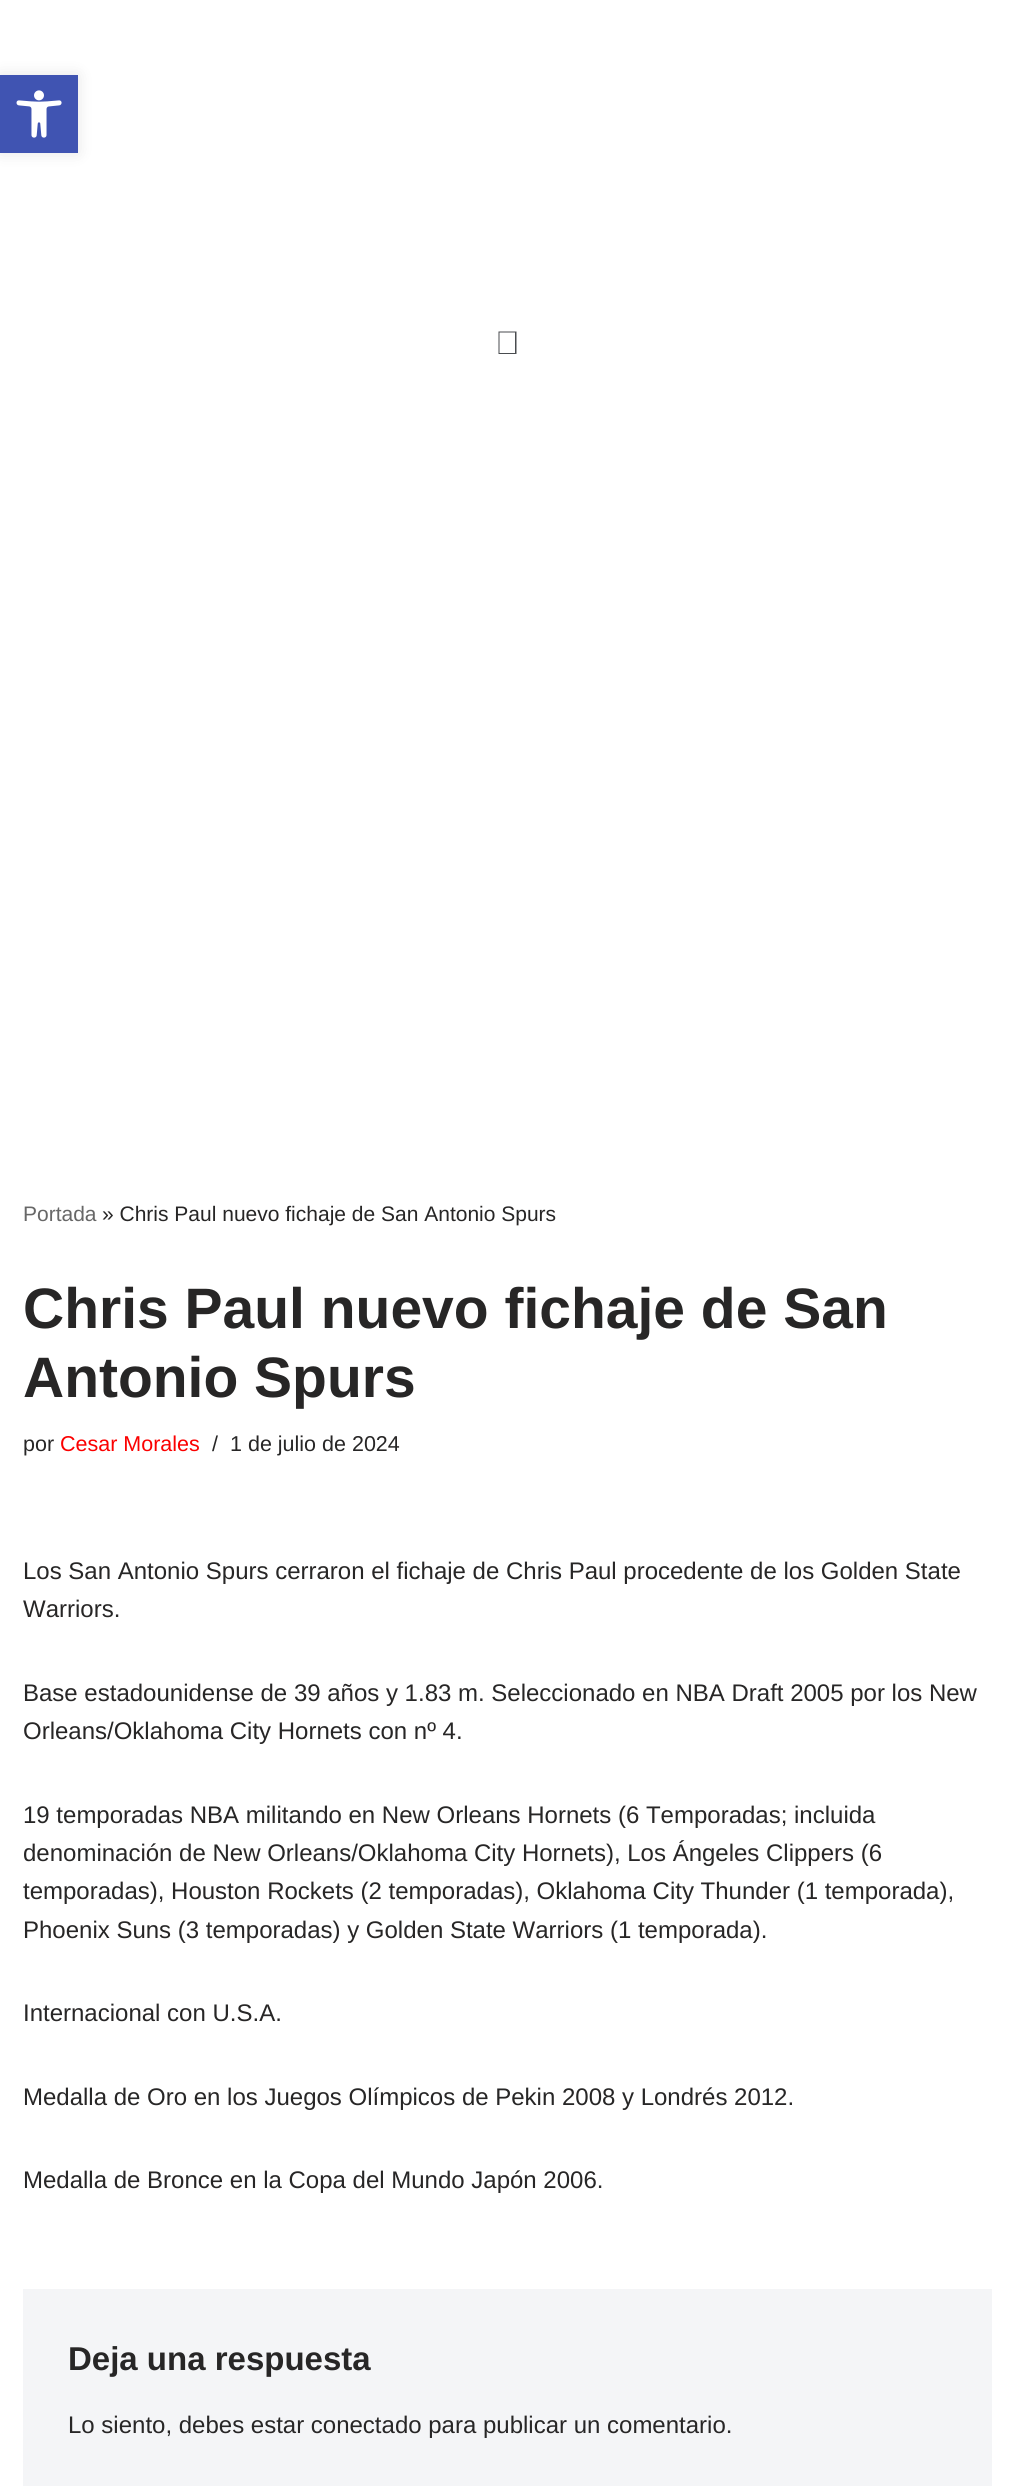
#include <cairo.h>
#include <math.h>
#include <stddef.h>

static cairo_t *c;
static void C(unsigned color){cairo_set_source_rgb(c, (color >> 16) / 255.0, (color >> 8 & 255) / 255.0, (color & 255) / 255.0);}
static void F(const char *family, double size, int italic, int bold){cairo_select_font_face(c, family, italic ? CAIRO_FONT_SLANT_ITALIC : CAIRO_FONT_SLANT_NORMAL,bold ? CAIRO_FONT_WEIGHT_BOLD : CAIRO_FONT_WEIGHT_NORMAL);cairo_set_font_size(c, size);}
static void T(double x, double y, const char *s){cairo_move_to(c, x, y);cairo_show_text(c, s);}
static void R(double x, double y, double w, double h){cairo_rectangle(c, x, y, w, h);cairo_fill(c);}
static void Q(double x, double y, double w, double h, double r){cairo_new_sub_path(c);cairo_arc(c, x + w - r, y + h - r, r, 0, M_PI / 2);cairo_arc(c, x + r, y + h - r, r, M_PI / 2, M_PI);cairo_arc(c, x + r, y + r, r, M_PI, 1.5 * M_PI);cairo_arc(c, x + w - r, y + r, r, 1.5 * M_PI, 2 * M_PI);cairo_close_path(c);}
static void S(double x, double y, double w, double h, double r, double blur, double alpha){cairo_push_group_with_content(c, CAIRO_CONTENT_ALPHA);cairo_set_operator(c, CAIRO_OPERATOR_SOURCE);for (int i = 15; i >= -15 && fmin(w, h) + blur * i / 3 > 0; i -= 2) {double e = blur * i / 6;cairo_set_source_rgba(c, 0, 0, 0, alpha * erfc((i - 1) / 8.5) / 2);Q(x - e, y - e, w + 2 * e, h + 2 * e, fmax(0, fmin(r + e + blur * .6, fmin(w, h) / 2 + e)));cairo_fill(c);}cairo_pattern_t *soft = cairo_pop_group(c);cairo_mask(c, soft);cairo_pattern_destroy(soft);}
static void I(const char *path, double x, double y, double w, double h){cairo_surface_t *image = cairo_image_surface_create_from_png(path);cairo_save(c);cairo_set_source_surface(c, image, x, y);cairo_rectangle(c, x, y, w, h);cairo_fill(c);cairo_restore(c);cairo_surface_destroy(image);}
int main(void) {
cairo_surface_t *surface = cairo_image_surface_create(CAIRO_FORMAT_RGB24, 1014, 2486);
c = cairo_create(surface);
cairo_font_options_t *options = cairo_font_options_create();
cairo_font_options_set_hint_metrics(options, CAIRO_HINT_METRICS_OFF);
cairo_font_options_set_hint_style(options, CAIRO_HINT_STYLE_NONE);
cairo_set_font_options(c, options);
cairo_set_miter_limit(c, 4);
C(0xffffff);
cairo_paint(c);
C(0x000000);
S(0,75,78,78,0,7.5,.1);
C(0x4054b2);
R(0,75,78,78);
I("1.png",16,90,46,48);
C(0x494c4f);
cairo_new_path(c);
cairo_move_to(c,498.5,331.5);
cairo_line_to(c,516.5,331.5);
cairo_line_to(c,516.5,354);
cairo_line_to(c,498.5,354);
cairo_close_path(c);
cairo_move_to(c,499.5,332.5);
cairo_line_to(c,499.5,353);
cairo_line_to(c,515,353);
cairo_line_to(c,515,332.5);
cairo_close_path(c);
cairo_fill(c);
F("Liberation Sans",21,0,0);
C(0x676767);
T(23,1221,"Portada");
C(0x272626);
T(102,1221,"» Chris Paul nuevo fichaje de San Antonio Spurs");
F("Liberation Sans",57,0,1);
T(23,1328,"Chris Paul nuevo fichaje de San");
T(23,1397,"Antonio Spurs");
F("Liberation Sans",21.5,0,0);
T(23,1451,"por");
C(0xfb0000);
T(60,1451,"Cesar Morales");
C(0x272626);
T(212,1451,"/");
T(230,1451,"1 de julio de 2024");
F("Liberation Sans",24,0,0);
T(23,1579,"Los San Antonio Spurs cerraron el fichaje de Chris Paul procedente de los Golden State");
T(23,1617,"Warriors.");
T(23,1701,"Base estadounidense de 39 años y 1.83 m. Seleccionado en NBA Draft 2005 por los New");
T(23,1739,"Orleans/Oklahoma City Hornets con nº 4.");
T(23,1823,"19 temporadas NBA militando en New Orleans Hornets (6 Temporadas; incluida");
T(23,1861,"denominación de New Orleans/Oklahoma City Hornets), Los Ángeles Clippers (6");
T(23,1899,"temporadas), Houston Rockets (2 temporadas), Oklahoma City Thunder (1 temporada),");
T(23,1938,"Phoenix Suns (3 temporadas) y Golden State Warriors (1 temporada).");
T(23,2021,"Internacional con U.S.A.");
T(23,2105,"Medalla de Oro en los Juegos Olímpicos de Pekin 2008 y Londrés 2012.");
T(23,2188,"Medalla de Bronce en la Copa del Mundo Japón 2006.");
C(0xf4f5f7);
R(23,2289,969,197);
F("Liberation Sans",33,0,1);
C(0x272626);
T(68,2370,"Deja una respuesta");
F("Liberation Sans",24,0,0);
T(68,2433,"Lo siento, debes estar conectado para publicar un comentario.");
cairo_surface_write_to_png(surface, "o.png");
cairo_font_options_destroy(options);
cairo_destroy(c);
cairo_surface_destroy(surface);
return 0;
}
